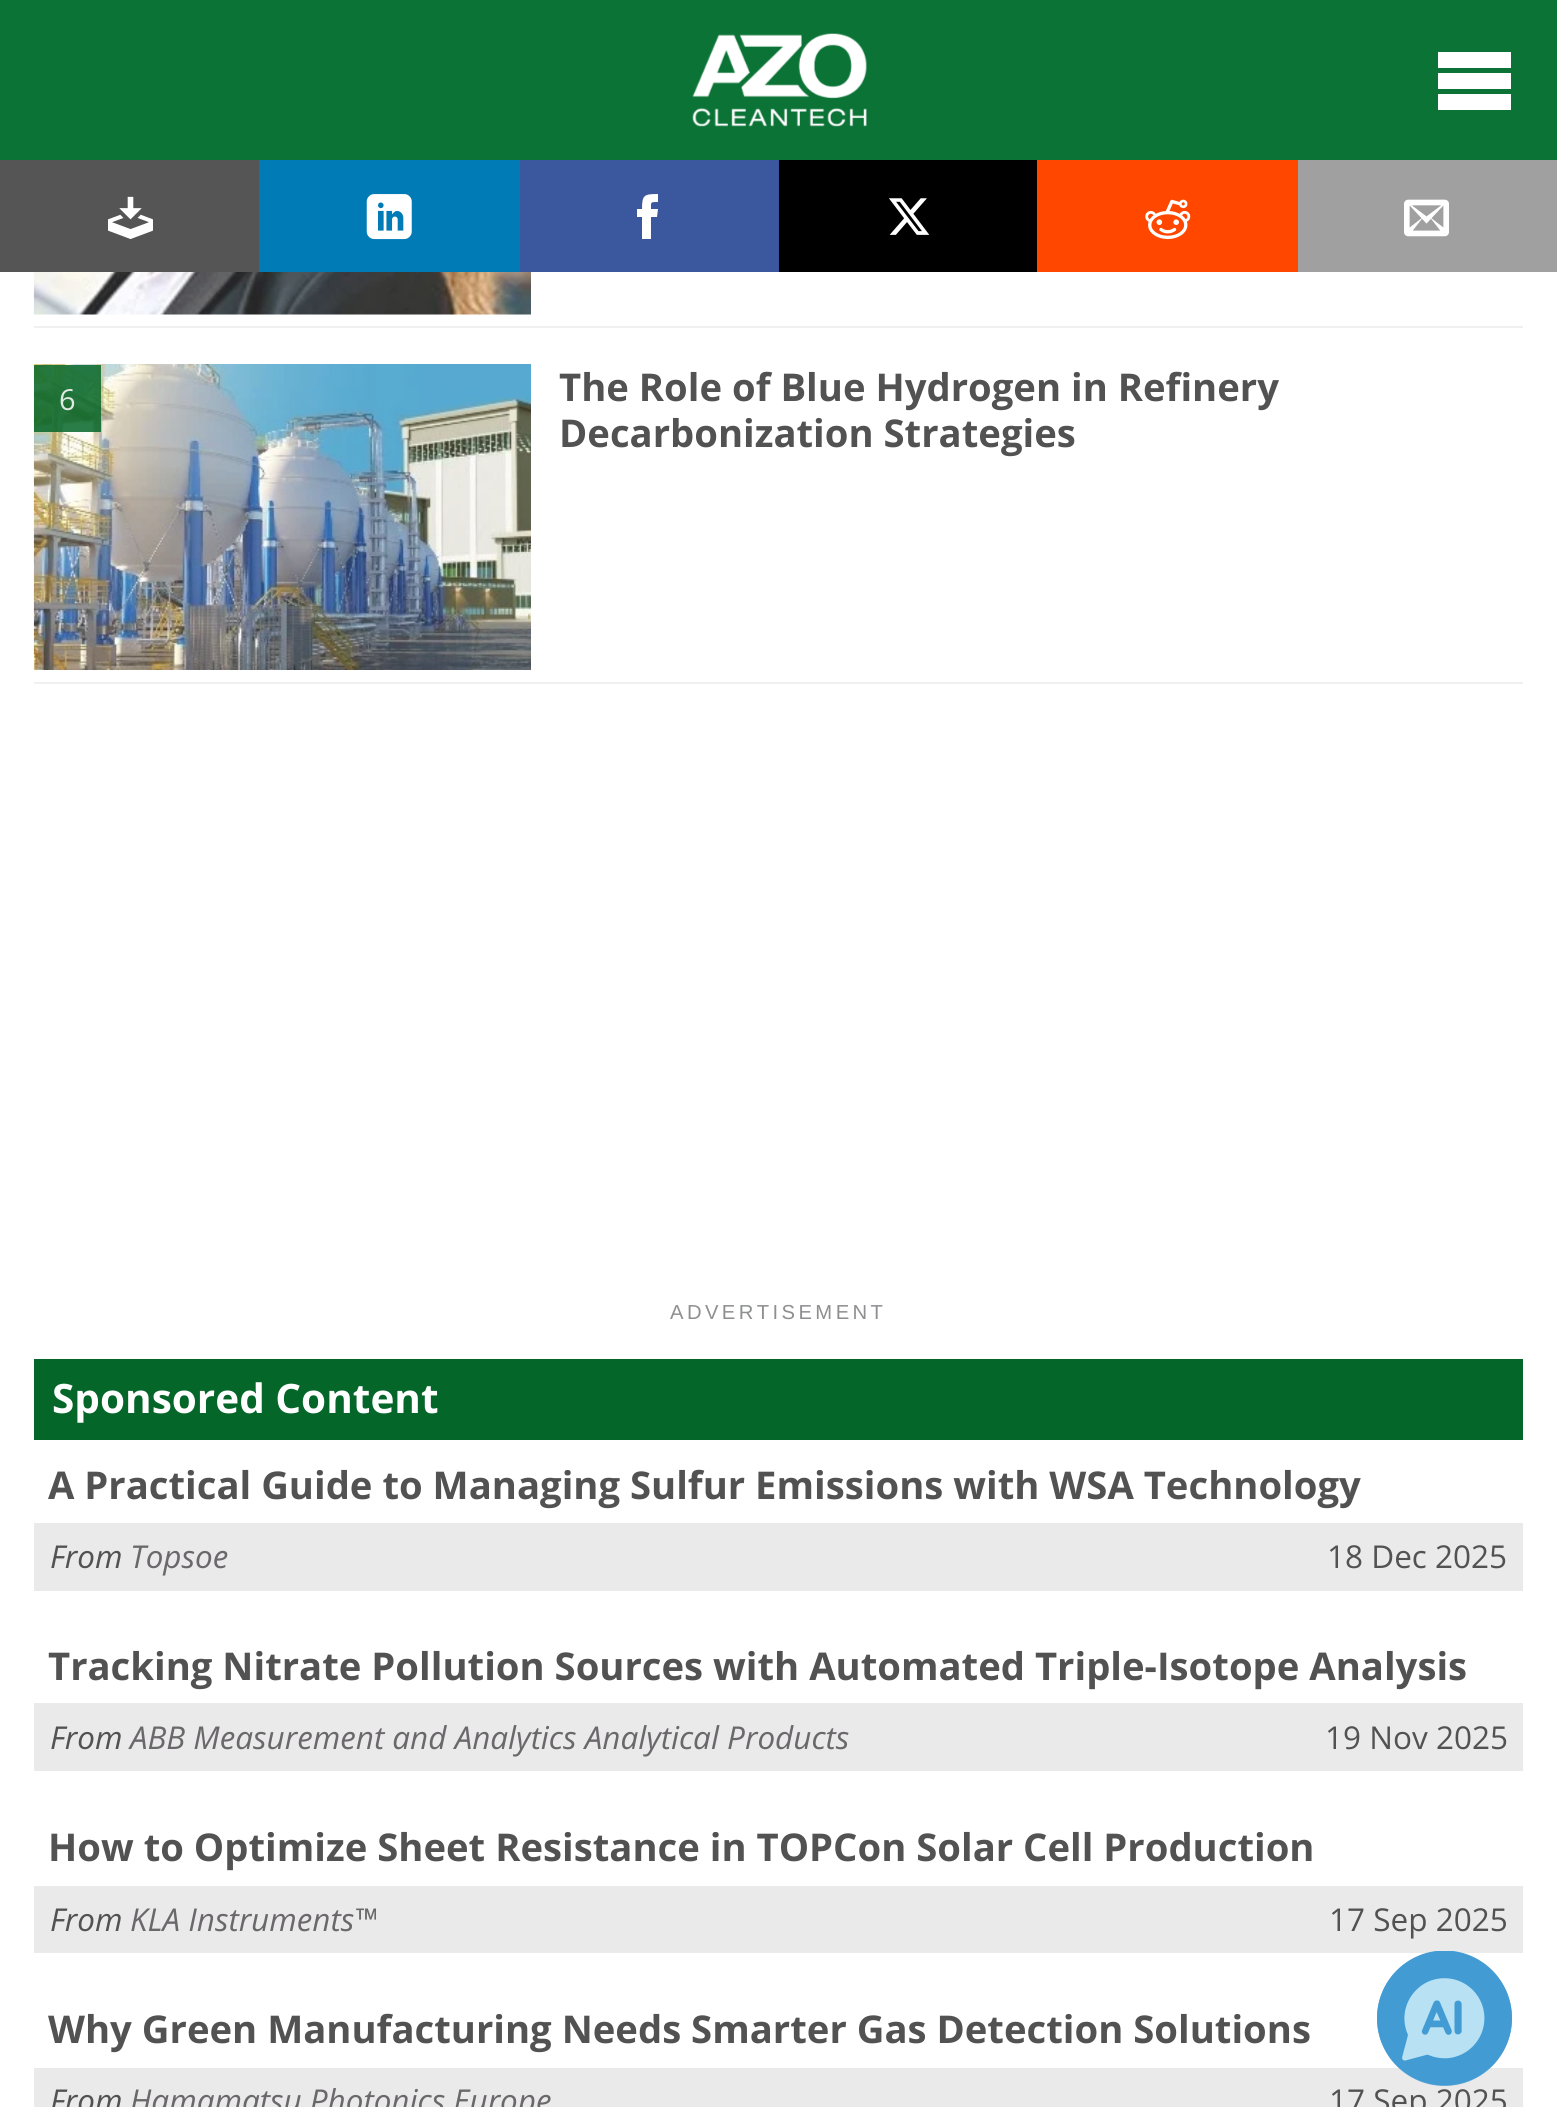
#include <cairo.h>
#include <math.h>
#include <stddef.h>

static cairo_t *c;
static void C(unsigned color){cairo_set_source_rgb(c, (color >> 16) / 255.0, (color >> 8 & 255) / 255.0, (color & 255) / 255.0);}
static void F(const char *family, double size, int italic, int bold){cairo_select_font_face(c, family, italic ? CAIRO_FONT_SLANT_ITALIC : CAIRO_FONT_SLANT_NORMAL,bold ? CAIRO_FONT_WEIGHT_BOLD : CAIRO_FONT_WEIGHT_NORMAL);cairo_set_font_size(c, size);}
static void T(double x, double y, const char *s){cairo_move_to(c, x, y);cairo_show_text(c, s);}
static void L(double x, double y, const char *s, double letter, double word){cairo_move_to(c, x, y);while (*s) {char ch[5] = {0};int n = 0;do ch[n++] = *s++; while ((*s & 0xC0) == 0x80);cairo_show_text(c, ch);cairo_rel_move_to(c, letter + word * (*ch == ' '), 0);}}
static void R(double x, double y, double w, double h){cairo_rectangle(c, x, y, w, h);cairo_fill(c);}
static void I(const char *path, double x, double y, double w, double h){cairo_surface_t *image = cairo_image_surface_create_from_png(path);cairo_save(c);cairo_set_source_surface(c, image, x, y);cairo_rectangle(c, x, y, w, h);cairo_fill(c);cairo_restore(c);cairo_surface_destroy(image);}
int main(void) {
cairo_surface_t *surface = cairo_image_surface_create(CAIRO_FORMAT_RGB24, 1557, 2107);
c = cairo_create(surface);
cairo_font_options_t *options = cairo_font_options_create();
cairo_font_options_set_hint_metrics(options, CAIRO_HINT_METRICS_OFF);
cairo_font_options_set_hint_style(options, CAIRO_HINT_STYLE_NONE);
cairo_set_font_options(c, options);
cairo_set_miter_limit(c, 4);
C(0xffffff);
cairo_paint(c);
C(0x0c7336);
R(0,0,1557,160);
I("1.png",692,33,175,94);
C(0xffffff);
cairo_new_path(c);
cairo_move_to(c,1438,52);
cairo_line_to(c,1511,52);
cairo_line_to(c,1511,68);
cairo_line_to(c,1438,68);
cairo_close_path(c);
cairo_move_to(c,1438,73);
cairo_line_to(c,1511,73);
cairo_line_to(c,1511,89);
cairo_line_to(c,1438,89);
cairo_close_path(c);
cairo_move_to(c,1438,94);
cairo_line_to(c,1511,94);
cairo_line_to(c,1511,110);
cairo_line_to(c,1438,110);
cairo_close_path(c);
cairo_fill(c);
C(0x555555);
R(0,160,259,112);
I("2.png",108,196,45,43);
C(0x007bb6);
R(259,160,261,112);
I("3.png",366,194,46,46);
C(0x3b579d);
R(520,160,259,112);
C(0xffffff);
cairo_new_path(c);
cairo_move_to(c,651,239);
cairo_line_to(c,642,239);
cairo_line_to(c,642,217);
cairo_line_to(c,637,217);
cairo_line_to(c,637,209);
cairo_line_to(c,642,209);
cairo_curve_to(c,642,195,644,194,658,194);
cairo_line_to(c,658,202);
cairo_curve_to(c,650,202,651,202,651,209);
cairo_line_to(c,658,209);
cairo_line_to(c,657,217);
cairo_line_to(c,651,217);
cairo_close_path(c);
cairo_fill(c);
C(0x000000);
R(779,160,258,112);
I("4.png",889,198,41,37);
C(0xff4700);
R(1037,160,261,112);
I("5.png",1145,199,46,41);
C(0xa0a0a0);
R(1298,160,259,112);
I("6.png",1404,199,45,38);
C(0xf0f0f0);
R(34,326,1489,2);
I("7.png",33,272,498,43);
R(34,682,1489,2);
I("8.png",33,364,498,306);
cairo_set_source_rgba(c,0.02,0.4,0.161,0.85);
R(34,365,67,67);
F("Open Sans",29,0,0);
C(0xdeeae1);
T(59,410,"6");
F("Open Sans",38.25,0,1);
C(0x525252);
T(559,401,"The Role of Blue Hydrogen in Refinery");
T(559,447,"Decarbonization Strategies");
F("Liberation Sans",20.25,0,0);
C(0x8e8f91);
L(670,1319,"ADVERTISEMENT",3.4,0);
C(0x056629);
R(34,1359,1489,81);
F("Open Sans",40.5,0,1);
C(0xffffff);
T(52,1413,"Sponsored Content");
F("Open Sans",38.25,0,1);
C(0x525252);
T(48,1499,"A Practical Guide to Managing Sulfur Emissions with WSA Technology");
C(0xeaeaea);
R(34,1523,1489,68);
F("Open Sans",31.5,1,0);
C(0x525252);
T(50,1568,"From");
C(0x6b686b);
T(130,1568,"Topsoe");
F("Open Sans",31.5,0,0);
C(0x525252);
T(1327,1568,"18 Dec 2025");
F("Open Sans",38.25,0,1);
T(48,1680,"Tracking Nitrate Pollution Sources with Automated Triple-Isotope Analysis");
C(0xeaeaea);
R(34,1703,1489,68);
F("Open Sans",31.5,1,0);
C(0x525252);
T(50,1749,"From");
C(0x6b686b);
T(130,1749,"ABB Measurement and Analytics Analytical Products");
F("Open Sans",31.5,0,0);
C(0x525252);
T(1325,1749,"19 Nov 2025");
F("Open Sans",38.25,0,1);
T(48,1861,"How to Optimize Sheet Resistance in TOPCon Solar Cell Production");
C(0xeaeaea);
R(34,1886,1489,67);
F("Open Sans",31.5,1,0);
C(0x525252);
T(50,1931,"From");
C(0x6b686b);
T(130,1931,"KLA Instruments™");
F("Open Sans",31.5,0,0);
C(0x525252);
T(1329,1931,"17 Sep 2025");
F("Open Sans",38.25,0,1);
T(48,2043,"Why Green Manufacturing Needs Smarter Gas Detection Solutions");
C(0xeaeaea);
R(34,2068,1489,39);
F("Open Sans",31.5,1,0);
C(0x525252);
T(50,2112,"From");
C(0x6b686b);
T(130,2112,"Hamamatsu Photonics Europe");
F("Open Sans",31.5,0,0);
C(0x525252);
T(1329,2112,"17 Sep 2025");
C(0x7fb3db);
cairo_new_path(c);
cairo_arc(c,1444.5,2018.5,67.5,0,2 * M_PI);
cairo_fill(c);
I("9.png",1377,1951,135,135);
cairo_surface_write_to_png(surface, "o.png");
cairo_font_options_destroy(options);
cairo_destroy(c);
cairo_surface_destroy(surface);
return 0;
}
